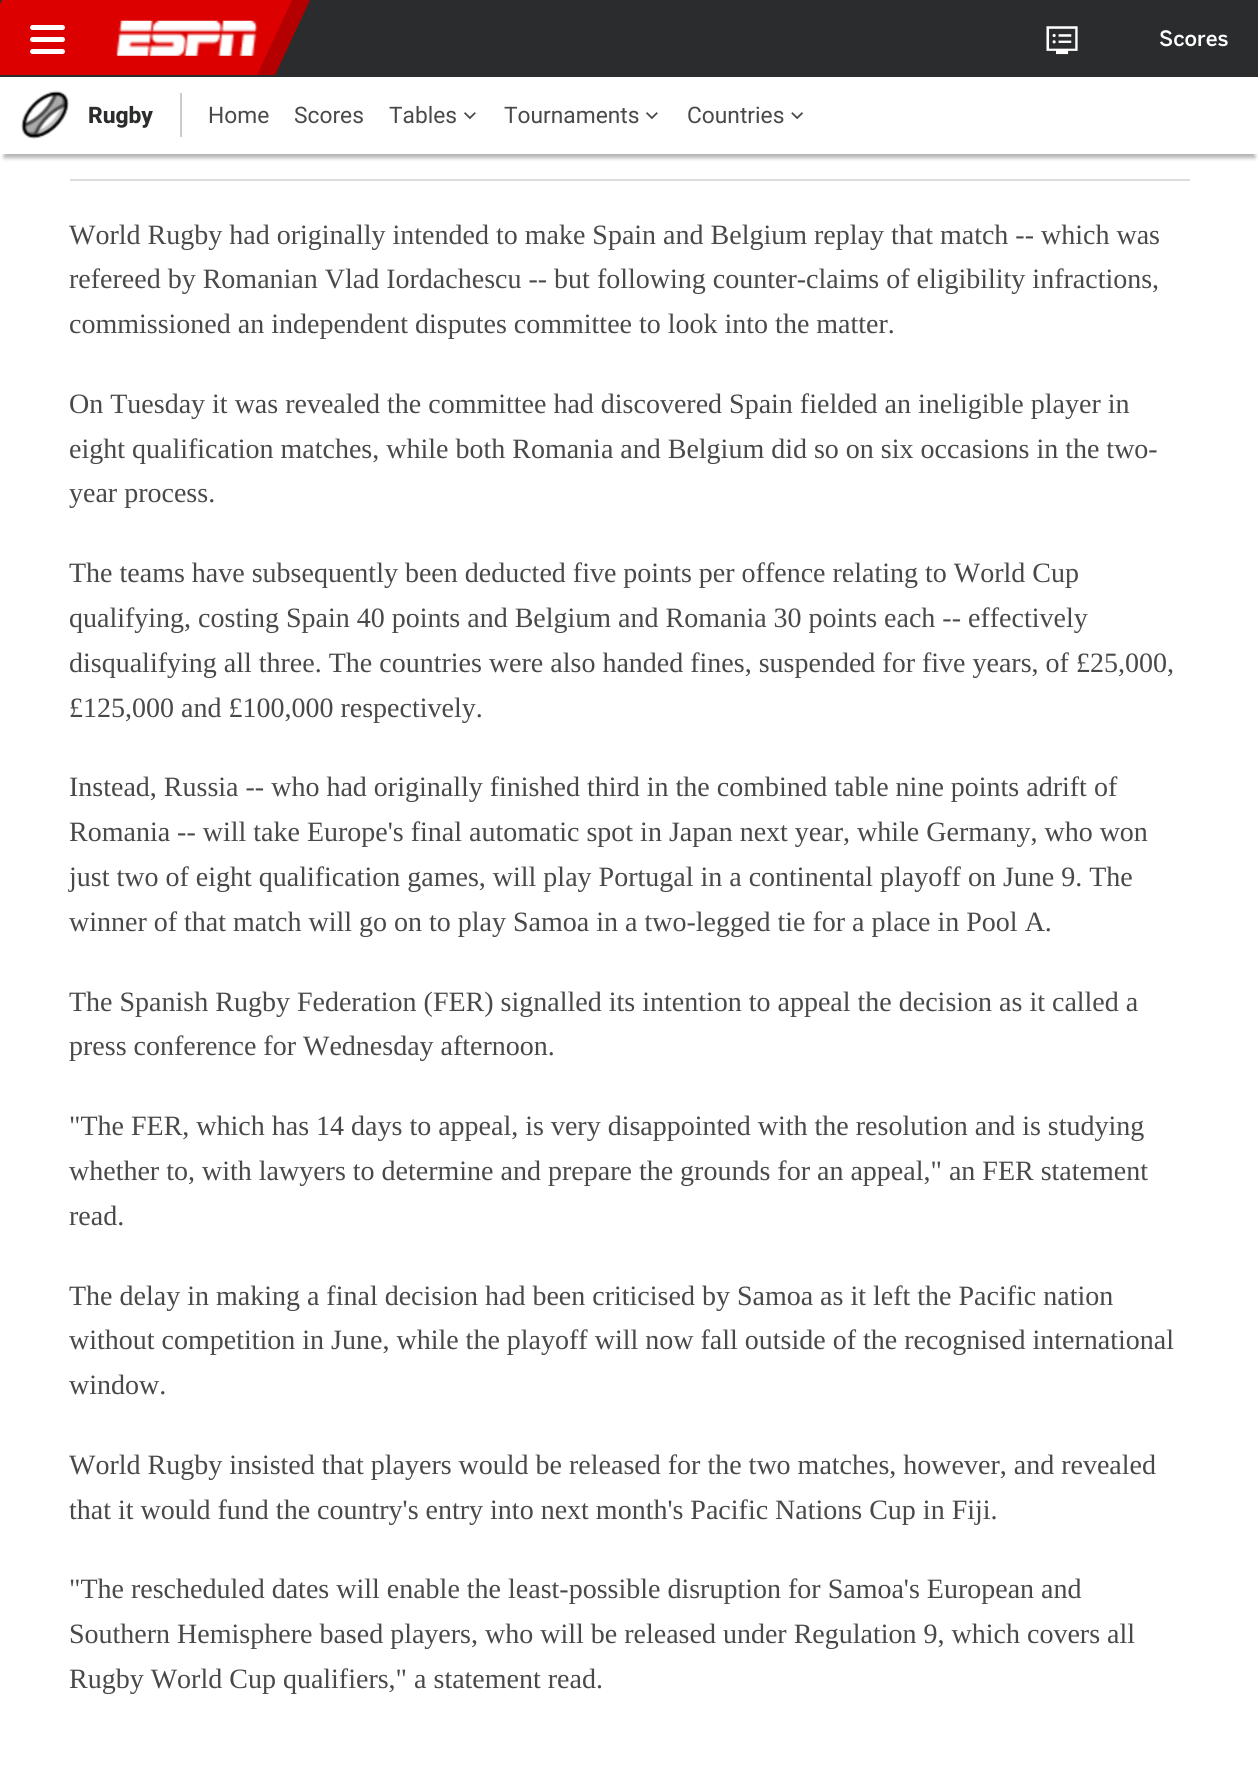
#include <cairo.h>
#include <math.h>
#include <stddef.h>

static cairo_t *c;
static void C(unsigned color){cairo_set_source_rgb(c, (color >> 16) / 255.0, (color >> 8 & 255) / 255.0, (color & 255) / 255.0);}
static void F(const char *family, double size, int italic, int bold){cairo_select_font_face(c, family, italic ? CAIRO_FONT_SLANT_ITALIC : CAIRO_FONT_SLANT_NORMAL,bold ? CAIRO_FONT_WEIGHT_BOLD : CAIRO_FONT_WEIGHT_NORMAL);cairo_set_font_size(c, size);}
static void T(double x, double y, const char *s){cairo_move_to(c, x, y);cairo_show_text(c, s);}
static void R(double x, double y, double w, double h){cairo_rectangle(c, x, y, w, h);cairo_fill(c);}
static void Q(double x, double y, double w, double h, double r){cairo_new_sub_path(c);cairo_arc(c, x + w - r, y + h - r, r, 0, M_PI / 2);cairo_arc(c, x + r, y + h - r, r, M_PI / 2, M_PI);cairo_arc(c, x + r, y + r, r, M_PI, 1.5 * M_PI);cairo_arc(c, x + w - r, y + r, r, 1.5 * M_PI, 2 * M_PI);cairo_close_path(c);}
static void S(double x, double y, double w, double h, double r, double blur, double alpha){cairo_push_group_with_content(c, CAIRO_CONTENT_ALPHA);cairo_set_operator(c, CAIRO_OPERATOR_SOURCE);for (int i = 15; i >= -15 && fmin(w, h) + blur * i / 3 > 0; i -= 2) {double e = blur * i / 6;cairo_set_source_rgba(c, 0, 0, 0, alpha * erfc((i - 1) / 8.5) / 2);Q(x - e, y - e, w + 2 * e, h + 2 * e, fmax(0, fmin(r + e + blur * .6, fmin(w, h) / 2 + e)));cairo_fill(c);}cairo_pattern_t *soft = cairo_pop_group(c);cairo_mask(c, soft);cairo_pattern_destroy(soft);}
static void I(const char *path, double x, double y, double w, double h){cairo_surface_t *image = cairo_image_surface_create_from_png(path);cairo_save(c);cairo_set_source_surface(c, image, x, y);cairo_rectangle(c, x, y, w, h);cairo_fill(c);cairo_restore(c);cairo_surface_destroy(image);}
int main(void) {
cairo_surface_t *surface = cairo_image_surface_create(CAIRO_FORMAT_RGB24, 1258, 1775);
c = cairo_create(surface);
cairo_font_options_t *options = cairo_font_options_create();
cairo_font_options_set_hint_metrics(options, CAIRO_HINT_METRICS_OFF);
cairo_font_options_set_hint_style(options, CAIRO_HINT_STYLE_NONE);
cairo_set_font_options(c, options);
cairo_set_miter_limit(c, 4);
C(0xffffff);
cairo_paint(c);
C(0x2b2c2d);
R(0,0,1258,77);
C(0xb40000);
cairo_new_path(c);
cairo_move_to(c,95,0);
cairo_line_to(c,310,0);
cairo_line_to(c,275,75);
cairo_line_to(c,59,75);
cairo_close_path(c);
cairo_fill(c);
C(0xdd0000);
cairo_new_path(c);
cairo_move_to(c,2,0);
cairo_line_to(c,292,0);
cairo_line_to(c,257,75);
cairo_line_to(c,-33,75);
cairo_close_path(c);
cairo_fill(c);
I("1.png",116,20,142,36);
C(0xffffff);
Q(30,37,35,5,2.5);
cairo_fill(c);
Q(30,25,35,5,2.5);
cairo_fill(c);
Q(30,49,35,5,2.5);
cairo_fill(c);
I("2.png",1046,26,32,29);
F("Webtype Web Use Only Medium",21,0,0);
T(1159,46,"Scores");
C(0x000000);
S(4,88,1251,70,0,2,.3);
C(0xffffff);
Q(0,77,1258,77,2);
cairo_fill(c);
I("3.png",21,90,49,49);
F("Roboto ExtraBold",22.75,0,0);
C(0x2b2c2d);
T(88,123,"Rugby");
C(0xcbccce);
R(180,93,2,44);
F("Roboto",22.75,0,0);
C(0x48494a);
T(208,123,"Home");
T(294,123,"Scores");
T(389,123,"Tables");
I("4.png",464,112,12,8);
T(504,123,"Tournaments");
I("4.png",646,112,12,8);
T(687,123,"Countries");
I("5.png",791,112,12,8);
C(0xdcdddf);
R(70,179,1120,2);
F("Liberation Serif",28,0,0);
C(0x48494a);
T(69,244,"World Rugby had originally intended to make Spain and Belgium replay that match -- which was");
T(69,288,"refereed by Romanian Vlad Iordachescu -- but following counter-claims of eligibility infractions,");
T(69,333,"commissioned an independent disputes committee to look into the matter.");
T(69,413,"On Tuesday it was revealed the committee had discovered Spain fielded an ineligible player in");
T(69,458,"eight qualification matches, while both Romania and Belgium did so on six occasions in the two-");
T(69,502,"year process.");
T(69,582,"The teams have subsequently been deducted five points per offence relating to World Cup");
T(69,627,"qualifying, costing Spain 40 points and Belgium and Romania 30 points each -- effectively");
T(69,672,"disqualifying all three. The countries were also handed fines, suspended for five years, of £25,000,");
T(69,717,"£125,000 and £100,000 respectively.");
T(69,796,"Instead, Russia -- who had originally finished third in the combined table nine points adrift of");
T(69,841,"Romania -- will take Europe's final automatic spot in Japan next year, while Germany, who won");
T(69,886,"just two of eight qualification games, will play Portugal in a continental playoff on June 9. The");
T(69,931,"winner of that match will go on to play Samoa in a two-legged tie for a place in Pool A.");
T(69,1011,"The Spanish Rugby Federation (FER) signalled its intention to appeal the decision as it called a");
T(69,1055,"press conference for Wednesday afternoon.");
T(69,1135,"\"The FER, which has 14 days to appeal, is very disappointed with the resolution and is studying");
T(69,1180,"whether to, with lawyers to determine and prepare the grounds for an appeal,\" an FER statement");
T(69,1225,"read.");
T(69,1305,"The delay in making a final decision had been criticised by Samoa as it left the Pacific nation");
T(69,1349,"without competition in June, while the playoff will now fall outside of the recognised international");
T(69,1394,"window.");
T(69,1474,"World Rugby insisted that players would be released for the two matches, however, and revealed");
T(69,1519,"that it would fund the country's entry into next month's Pacific Nations Cup in Fiji.");
T(69,1598,"\"The rescheduled dates will enable the least-possible disruption for Samoa's European and");
T(69,1643,"Southern Hemisphere based players, who will be released under Regulation 9, which covers all");
T(69,1688,"Rugby World Cup qualifiers,\" a statement read.");
cairo_surface_write_to_png(surface, "o.png");
cairo_font_options_destroy(options);
cairo_destroy(c);
cairo_surface_destroy(surface);
return 0;
}
